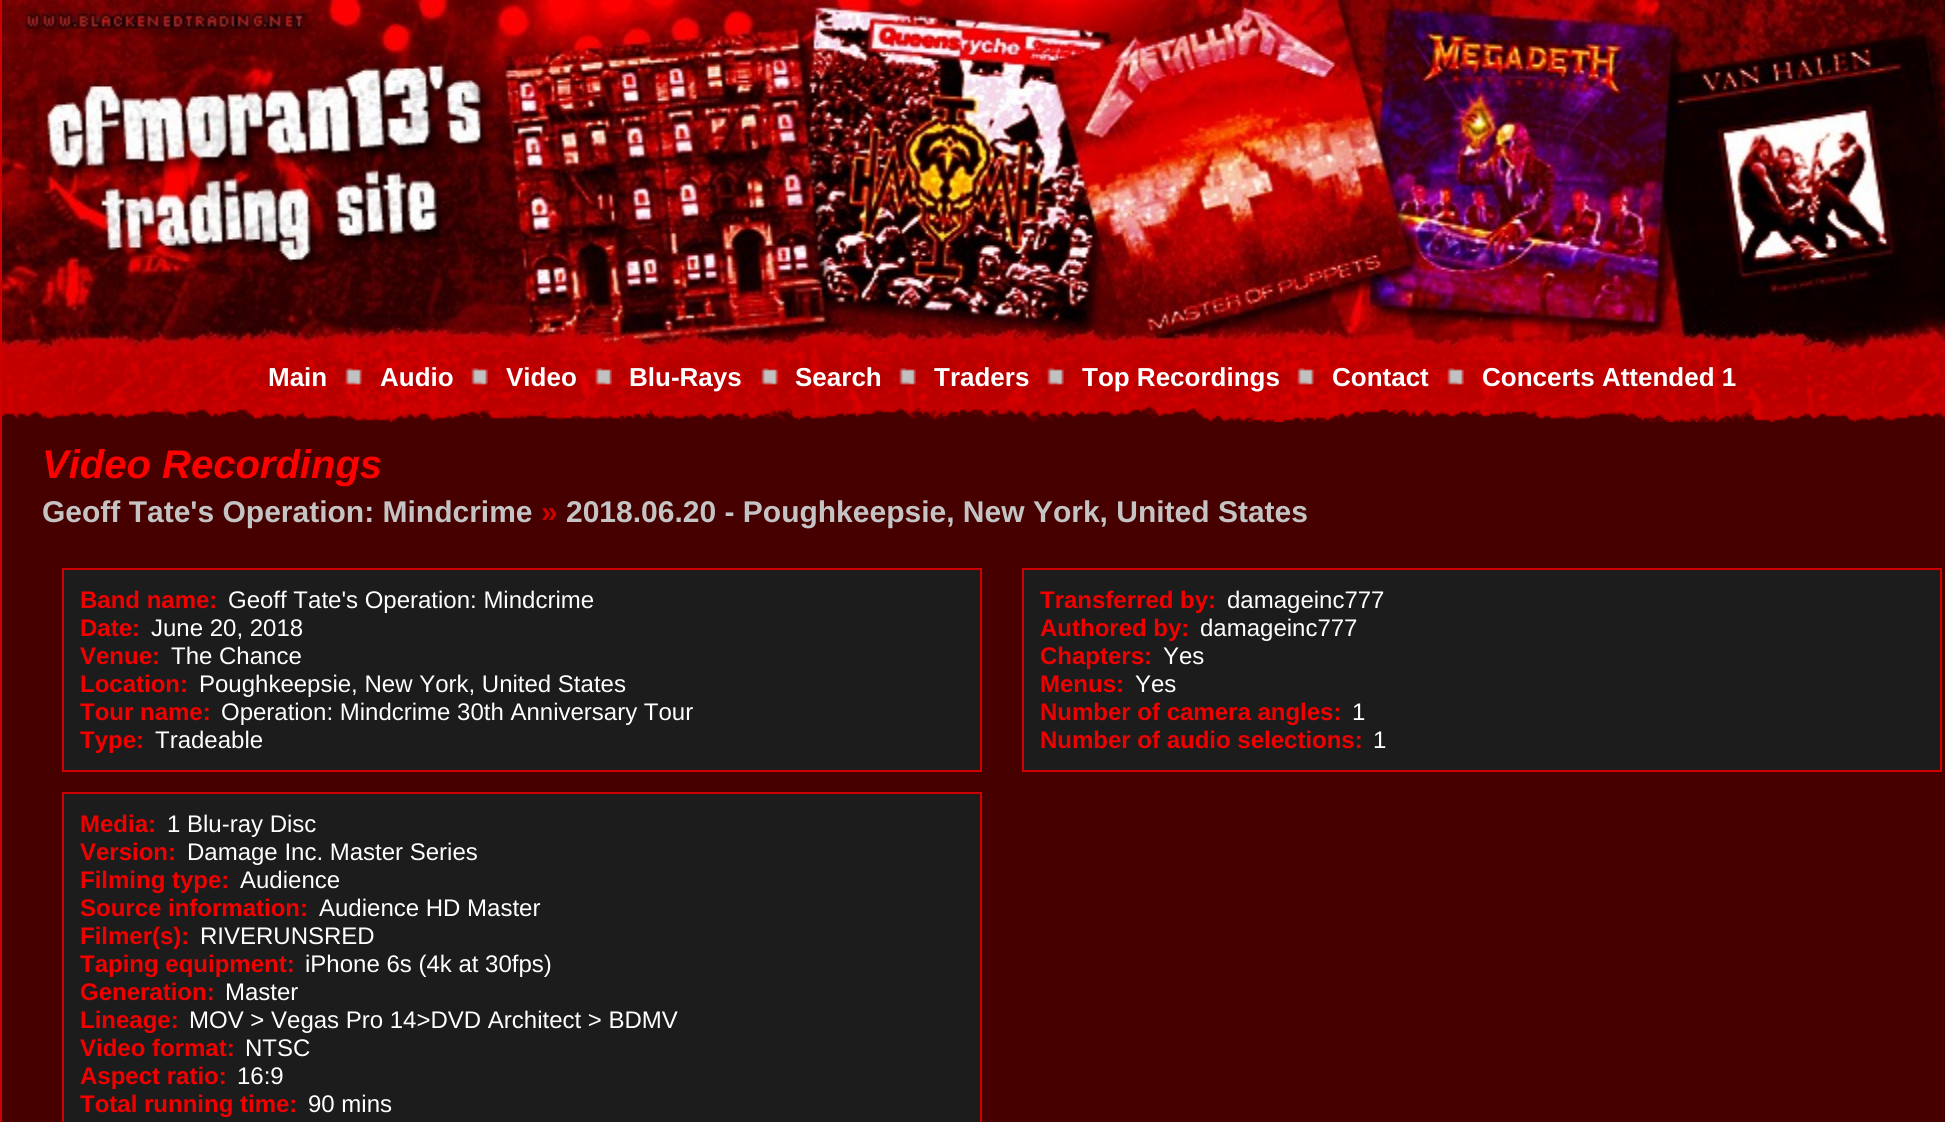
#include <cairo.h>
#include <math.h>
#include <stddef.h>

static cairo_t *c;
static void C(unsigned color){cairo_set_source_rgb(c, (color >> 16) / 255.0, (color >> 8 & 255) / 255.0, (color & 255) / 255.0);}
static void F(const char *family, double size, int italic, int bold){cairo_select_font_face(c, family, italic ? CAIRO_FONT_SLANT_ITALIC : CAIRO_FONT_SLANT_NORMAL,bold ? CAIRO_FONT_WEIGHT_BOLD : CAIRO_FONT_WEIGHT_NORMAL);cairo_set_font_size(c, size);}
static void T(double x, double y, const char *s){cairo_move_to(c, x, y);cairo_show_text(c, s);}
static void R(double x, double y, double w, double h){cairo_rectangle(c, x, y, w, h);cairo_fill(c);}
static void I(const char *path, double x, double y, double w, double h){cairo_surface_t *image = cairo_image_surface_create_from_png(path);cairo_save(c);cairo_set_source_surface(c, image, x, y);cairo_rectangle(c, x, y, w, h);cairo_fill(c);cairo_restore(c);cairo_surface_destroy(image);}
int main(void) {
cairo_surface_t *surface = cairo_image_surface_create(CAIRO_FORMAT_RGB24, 1945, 1122);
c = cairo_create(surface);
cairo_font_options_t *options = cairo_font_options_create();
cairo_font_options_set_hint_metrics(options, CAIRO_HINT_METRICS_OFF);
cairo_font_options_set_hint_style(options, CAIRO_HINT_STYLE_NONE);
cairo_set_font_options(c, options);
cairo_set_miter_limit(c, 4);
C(0x460000);
cairo_paint(c);
C(0xcf0000);
R(0,0,2,1122);
I("1.png",2,0,1943,352);
I("2.png",2,352,1943,70);
F("Liberation Sans",26,0,1);
C(0xffffff);
T(268,386,"Main");
I("3.png",345,368,17,17);
T(380,386,"Audio");
I("4.png",471,368,17,17);
T(506,386,"Video");
I("5.png",595,368,17,17);
T(629,386,"Blu-Rays");
I("6.png",761,368,17,17);
T(795,386,"Search");
I("7.png",899,368,17,17);
T(934,386,"Traders");
I("8.png",1047,368,17,17);
T(1082,386,"Top Recordings");
I("9.png",1297,368,17,17);
T(1332,386,"Contact");
I("10.png",1447,368,17,17);
T(1482,386,"Concerts Attended 1");
F("Liberation Sans",40,1,1);
C(0xff0000);
T(42,478,"Video Recordings");
F("Liberation Sans",30,0,1);
C(0xc4c4c4);
T(42,522,"Geoff Tate's Operation: Mindcrime");
C(0xcf0000);
T(541,522,"»");
C(0xc4c4c4);
T(566,522,"2018.06.20 - Poughkeepsie, New York, United States");
C(0x1c1c1c);
cairo_rectangle(c,63,569,918,202);
cairo_fill_preserve(c);
C(0xcf0000);
cairo_stroke(c);
F("Liberation Sans",24,0,1);
C(0xf10000);
T(80,608,"Band name:");
F("Liberation Sans",24,0,0);
C(0xffffff);
T(228,608,"Geoff Tate's Operation: Mindcrime");
F("Liberation Sans",24,0,1);
C(0xf10000);
T(80,636,"Date:");
F("Liberation Sans",24,0,0);
C(0xffffff);
T(151,636,"June 20, 2018");
F("Liberation Sans",24,0,1);
C(0xf10000);
T(80,664,"Venue:");
F("Liberation Sans",24,0,0);
C(0xffffff);
T(171,664,"The Chance");
F("Liberation Sans",24,0,1);
C(0xf10000);
T(80,692,"Location:");
F("Liberation Sans",24,0,0);
C(0xffffff);
T(199,692,"Poughkeepsie, New York, United States");
F("Liberation Sans",24,0,1);
C(0xf10000);
T(80,720,"Tour name:");
F("Liberation Sans",24,0,0);
C(0xffffff);
T(221,720,"Operation: Mindcrime 30th Anniversary Tour");
F("Liberation Sans",24,0,1);
C(0xf10000);
T(80,748,"Type:");
F("Liberation Sans",24,0,0);
C(0xffffff);
T(155,748,"Tradeable");
C(0x1c1c1c);
cairo_rectangle(c,63,793,918,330);
cairo_fill_preserve(c);
C(0xcf0000);
cairo_stroke(c);
F("Liberation Sans",24,0,1);
C(0xf10000);
T(80,832,"Media:");
F("Liberation Sans",24,0,0);
C(0xffffff);
T(167,832,"1 Blu-ray Disc");
F("Liberation Sans",24,0,1);
C(0xf10000);
T(80,860,"Version:");
F("Liberation Sans",24,0,0);
C(0xffffff);
T(187,860,"Damage Inc. Master Series");
F("Liberation Sans",24,0,1);
C(0xf10000);
T(80,888,"Filming type:");
F("Liberation Sans",24,0,0);
C(0xffffff);
T(240,888,"Audience");
F("Liberation Sans",24,0,1);
C(0xf10000);
T(80,916,"Source information:");
F("Liberation Sans",24,0,0);
C(0xffffff);
T(319,916,"Audience HD Master");
F("Liberation Sans",24,0,1);
C(0xf10000);
T(80,944,"Filmer(s):");
F("Liberation Sans",24,0,0);
C(0xffffff);
T(200,944,"RIVERUNSRED");
F("Liberation Sans",24,0,1);
C(0xf10000);
T(80,972,"Taping equipment:");
F("Liberation Sans",24,0,0);
C(0xffffff);
T(305,972,"iPhone 6s (4k at 30fps)");
F("Liberation Sans",24,0,1);
C(0xf10000);
T(80,1000,"Generation:");
F("Liberation Sans",24,0,0);
C(0xffffff);
T(225,1000,"Master");
F("Liberation Sans",24,0,1);
C(0xf10000);
T(80,1028,"Lineage:");
F("Liberation Sans",24,0,0);
C(0xffffff);
T(189,1028,"MOV > Vegas Pro 14>DVD Architect > BDMV");
F("Liberation Sans",24,0,1);
C(0xf10000);
T(80,1056,"Video format:");
F("Liberation Sans",24,0,0);
C(0xffffff);
T(245,1056,"NTSC");
F("Liberation Sans",24,0,1);
C(0xf10000);
T(80,1084,"Aspect ratio:");
F("Liberation Sans",24,0,0);
C(0xffffff);
T(237,1084,"16:9");
F("Liberation Sans",24,0,1);
C(0xf10000);
T(80,1112,"Total running time:");
F("Liberation Sans",24,0,0);
C(0xffffff);
T(308,1112,"90 mins");
C(0x1c1c1c);
cairo_rectangle(c,1023,569,918,202);
cairo_fill_preserve(c);
C(0xcf0000);
cairo_stroke(c);
F("Liberation Sans",24,0,1);
C(0xf10000);
T(1040,608,"Transferred by:");
F("Liberation Sans",24,0,0);
C(0xffffff);
T(1227,608,"damageinc777");
F("Liberation Sans",24,0,1);
C(0xf10000);
T(1040,636,"Authored by:");
F("Liberation Sans",24,0,0);
C(0xffffff);
T(1200,636,"damageinc777");
F("Liberation Sans",24,0,1);
C(0xf10000);
T(1040,664,"Chapters:");
F("Liberation Sans",24,0,0);
C(0xffffff);
T(1163,664,"Yes");
F("Liberation Sans",24,0,1);
C(0xf10000);
T(1040,692,"Menus:");
F("Liberation Sans",24,0,0);
C(0xffffff);
T(1135,692,"Yes");
F("Liberation Sans",24,0,1);
C(0xf10000);
T(1040,720,"Number of camera angles:");
F("Liberation Sans",24,0,0);
C(0xffffff);
T(1352,720,"1");
F("Liberation Sans",24,0,1);
C(0xf10000);
T(1040,748,"Number of audio selections:");
F("Liberation Sans",24,0,0);
C(0xffffff);
T(1373,748,"1");
cairo_surface_write_to_png(surface, "o.png");
cairo_font_options_destroy(options);
cairo_destroy(c);
cairo_surface_destroy(surface);
return 0;
}
